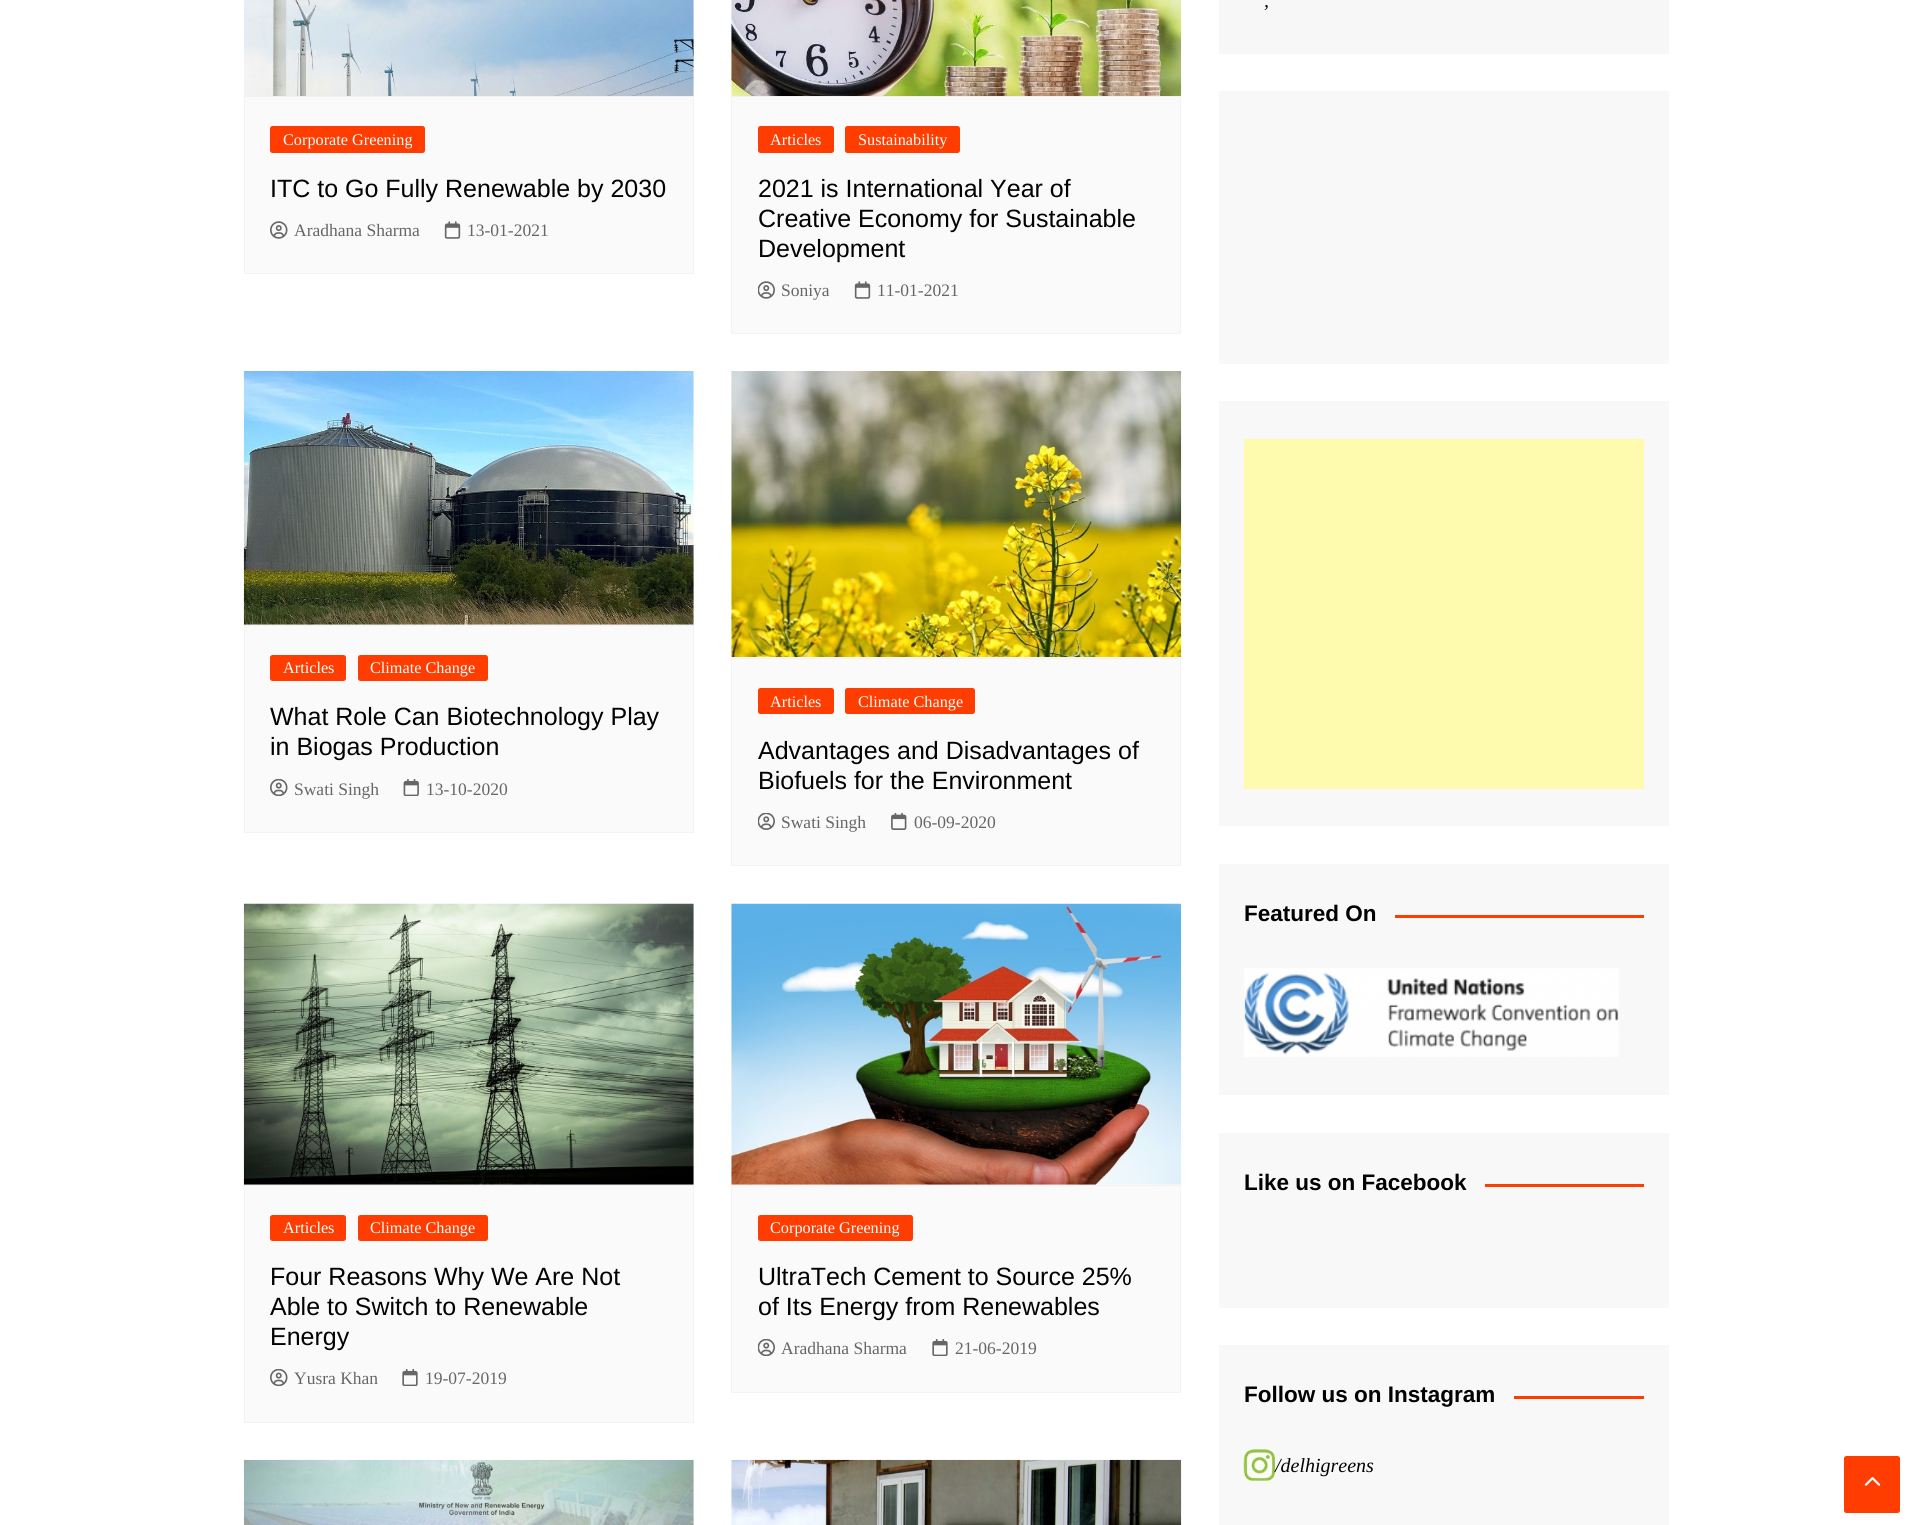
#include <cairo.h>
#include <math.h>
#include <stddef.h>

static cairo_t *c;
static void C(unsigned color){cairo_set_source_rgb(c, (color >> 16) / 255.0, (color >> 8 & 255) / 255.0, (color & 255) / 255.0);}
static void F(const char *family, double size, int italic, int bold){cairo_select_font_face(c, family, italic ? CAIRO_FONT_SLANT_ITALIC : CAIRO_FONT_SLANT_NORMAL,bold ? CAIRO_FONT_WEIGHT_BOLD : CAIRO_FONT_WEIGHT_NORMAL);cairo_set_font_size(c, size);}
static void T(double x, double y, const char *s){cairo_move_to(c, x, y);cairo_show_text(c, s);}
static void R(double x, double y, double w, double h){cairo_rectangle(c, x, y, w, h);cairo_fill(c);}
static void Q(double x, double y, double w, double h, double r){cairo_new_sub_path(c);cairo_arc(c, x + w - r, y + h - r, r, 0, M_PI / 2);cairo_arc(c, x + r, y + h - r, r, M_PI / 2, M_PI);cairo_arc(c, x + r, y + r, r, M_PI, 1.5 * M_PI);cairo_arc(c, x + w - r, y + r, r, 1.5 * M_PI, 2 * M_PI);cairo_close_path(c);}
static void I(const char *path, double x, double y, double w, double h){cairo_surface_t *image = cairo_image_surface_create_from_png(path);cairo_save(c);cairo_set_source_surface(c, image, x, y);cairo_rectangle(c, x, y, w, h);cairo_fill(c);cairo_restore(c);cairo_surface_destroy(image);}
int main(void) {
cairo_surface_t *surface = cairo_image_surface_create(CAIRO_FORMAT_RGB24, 1912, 1525);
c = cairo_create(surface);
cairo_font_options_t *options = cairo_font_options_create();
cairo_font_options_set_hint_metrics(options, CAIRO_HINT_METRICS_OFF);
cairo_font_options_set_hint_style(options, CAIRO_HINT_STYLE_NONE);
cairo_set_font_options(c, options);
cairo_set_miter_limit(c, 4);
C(0xffffff);
cairo_paint(c);
I("1.png",244,0,450,96);
C(0xfafafa);
cairo_rectangle(c,244.5,96.5,449,177);
cairo_fill_preserve(c);
C(0xf3f3f3);
cairo_set_line_width(c,1);
cairo_stroke(c);
C(0xff3d00);
Q(270,126,155,27,2.5);
cairo_fill(c);
F("Liberation Serif",16.25,0,0);
C(0xffffff);
T(283,145,"Corporate Greening");
F("Liberation Sans",25,0,0);
C(0x010101);
T(270,197,"ITC to Go Fully Renewable by 2030");
I("2.png",270,221,18,18);
F("Liberation Serif",17.5,0,0);
C(0x666666);
T(294,236,"Aradhana Sharma");
I("3.png",444,221,17,18);
T(467,236,"13-01-2021");
I("4.png",731,0,451,96);
C(0xfafafa);
cairo_rectangle(c,731.5,96.5,449,237);
cairo_fill_preserve(c);
C(0xf3f3f3);
cairo_stroke(c);
C(0xff3d00);
Q(758,126,76,27,2.5);
cairo_fill(c);
F("Liberation Serif",16.25,0,0);
C(0xffffff);
T(770,145,"Articles");
C(0xff3d00);
Q(845,126,115,27,2.5);
cairo_fill(c);
C(0xffffff);
T(858,145,"Sustainability");
F("Liberation Sans",25,0,0);
C(0x010101);
T(758,197,"2021 is International Year of");
T(758,227,"Creative Economy for Sustainable");
T(758,257,"Development");
I("5.png",758,281,17,18);
F("Liberation Serif",17.5,0,0);
C(0x666666);
T(781,296,"Soniya");
I("3.png",854,281,17,18);
T(877,296,"11-01-2021");
I("6.png",243,371,451,254);
C(0xfafafa);
cairo_rectangle(c,244.5,625.5,449,207);
cairo_fill_preserve(c);
C(0xf3f3f3);
cairo_stroke(c);
C(0xff3d00);
Q(270,655,76,26,2.5);
cairo_fill(c);
F("Liberation Serif",16.25,0,0);
C(0xffffff);
T(283,673,"Articles");
C(0xff3d00);
Q(358,655,130,26,2.5);
cairo_fill(c);
C(0xffffff);
T(370,673,"Climate Change");
F("Liberation Sans",25,0,0);
C(0x010101);
T(270,725,"What Role Can Biotechnology Play");
T(270,755,"in Biogas Production");
I("7.png",270,779,18,17);
F("Liberation Serif",17.5,0,0);
C(0x666666);
T(294,795,"Swati Singh");
I("8.png",403,779,16,17);
T(426,795,"13-10-2020");
I("9.png",731,371,451,287);
C(0xfafafa);
cairo_rectangle(c,731.5,658.5,449,207);
cairo_fill_preserve(c);
C(0xf3f3f3);
cairo_stroke(c);
C(0xff3d00);
Q(758,688,76,26,2.5);
cairo_fill(c);
F("Liberation Serif",16.25,0,0);
C(0xffffff);
T(770,707,"Articles");
C(0xff3d00);
Q(845,688,130,26,2.5);
cairo_fill(c);
C(0xffffff);
T(858,707,"Climate Change");
F("Liberation Sans",25,0,0);
C(0x010101);
T(758,759,"Advantages and Disadvantages of");
T(758,789,"Biofuels for the Environment");
I("10.png",758,813,17,17);
F("Liberation Serif",17.5,0,0);
C(0x666666);
T(781,828,"Swati Singh");
I("11.png",891,813,16,17);
T(914,828,"06-09-2020");
I("12.png",243,903,451,282);
C(0xfafafa);
cairo_rectangle(c,244.5,1185.5,449,237);
cairo_fill_preserve(c);
C(0xf3f3f3);
cairo_stroke(c);
C(0xff3d00);
Q(270,1215,76,26,2.5);
cairo_fill(c);
F("Liberation Serif",16.25,0,0);
C(0xffffff);
T(283,1233,"Articles");
C(0xff3d00);
Q(358,1215,130,26,2.5);
cairo_fill(c);
C(0xffffff);
T(370,1233,"Climate Change");
F("Liberation Sans",25,0,0);
C(0x010101);
T(270,1285,"Four Reasons Why We Are Not");
T(270,1315,"Able to Switch to Renewable");
T(270,1345,"Energy");
I("7.png",270,1369,18,17);
F("Liberation Serif",17.5,0,0);
C(0x666666);
T(294,1384,"Yusra Khan");
I("13.png",402,1369,16,17);
T(425,1384,"19-07-2019");
I("14.png",731,903,451,282);
C(0xfafafa);
cairo_rectangle(c,731.5,1185.5,449,207);
cairo_fill_preserve(c);
C(0xf3f3f3);
cairo_stroke(c);
C(0xff3d00);
Q(758,1215,155,26,2.5);
cairo_fill(c);
F("Liberation Serif",16.25,0,0);
C(0xffffff);
T(770,1233,"Corporate Greening");
F("Liberation Sans",25,0,0);
C(0x010101);
T(758,1285,"UltraTech Cement to Source 25%");
T(758,1315,"of Its Energy from Renewables");
I("15.png",758,1339,17,17);
F("Liberation Serif",17.5,0,0);
C(0x666666);
T(781,1354,"Aradhana Sharma");
I("13.png",932,1339,16,17);
T(955,1354,"21-06-2019");
I("16.png",243,1459,451,66);
I("17.png",731,1459,451,66);
C(0xf7f7f7);
R(1219,0,450,54);
F("Liberation Serif",20,1,0);
C(0x010101);
T(1264,7,",");
C(0xf8f8f8);
R(1219,91,450,273);
R(1219,401,450,425);
C(0xfffbae);
R(1244,439,400,350);
C(0xf8f8f8);
R(1219,864,450,231);
F("Liberation Sans",22.5,0,1);
C(0x010101);
T(1244,921,"Featured On");
C(0xff3d00);
R(1395,915,249,3);
I("18.png",1244,968,375,89);
C(0xf8f8f8);
R(1219,1133,450,175);
C(0x010101);
T(1244,1190,"Like us on Facebook");
C(0xff3d00);
R(1485,1184,159,3);
C(0xf8f8f8);
R(1219,1345,450,180);
C(0x010101);
T(1244,1402,"Follow us on Instagram");
C(0xff3d00);
R(1514,1396,130,3);
I("19.png",1243,1449,32,32);
F("Liberation Serif",20,1,0);
C(0x010101);
T(1275,1472,"/delhigreens");
C(0xff3d00);
Q(1844,1456,56,57,2.5);
cairo_fill(c);
I("20.png",1864,1477,17,9);
cairo_surface_write_to_png(surface, "o.png");
cairo_font_options_destroy(options);
cairo_destroy(c);
cairo_surface_destroy(surface);
return 0;
}
